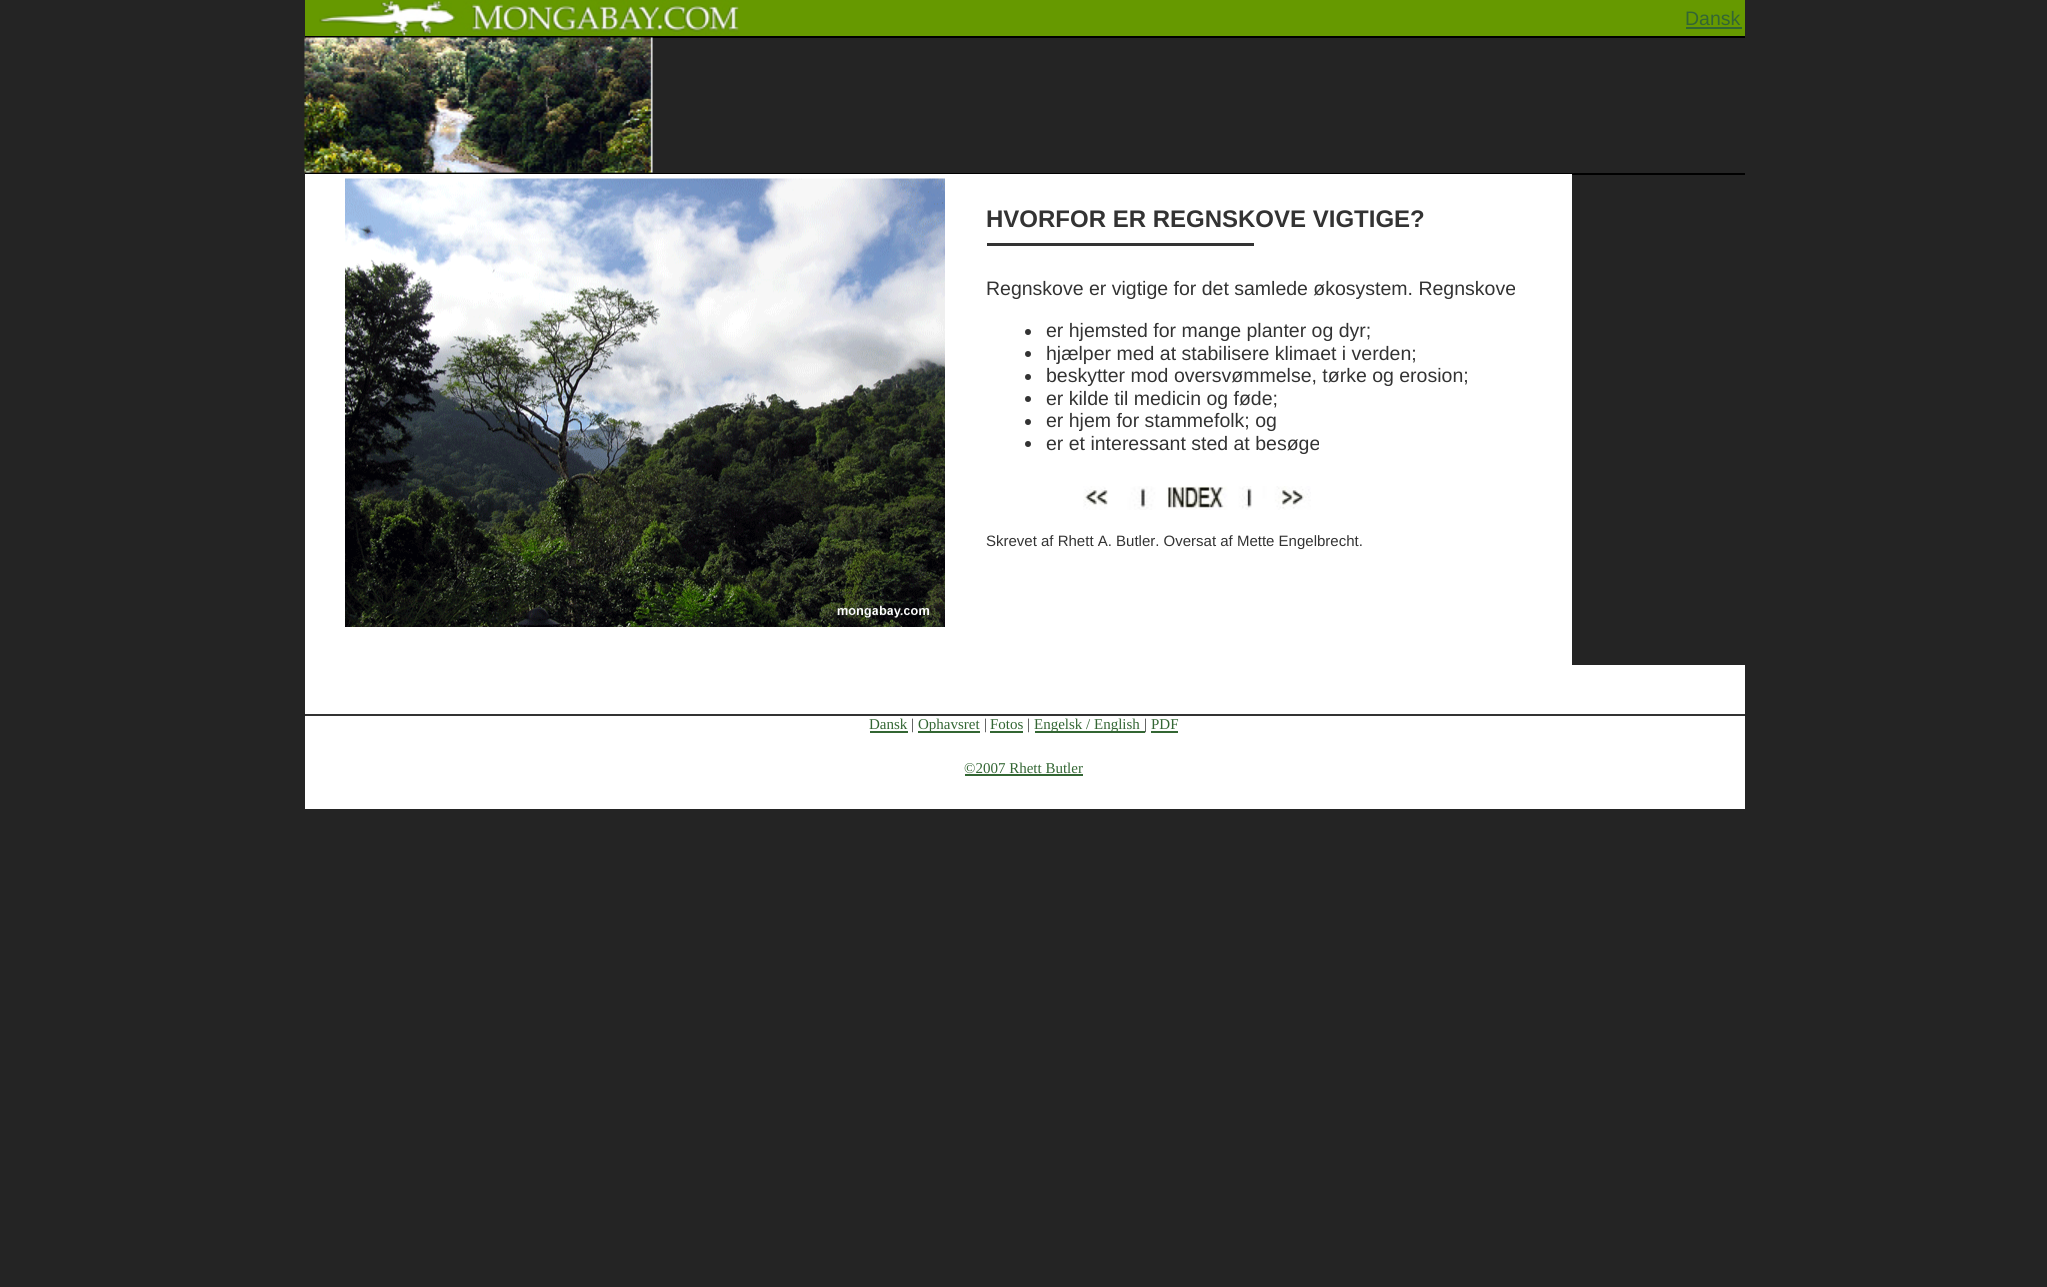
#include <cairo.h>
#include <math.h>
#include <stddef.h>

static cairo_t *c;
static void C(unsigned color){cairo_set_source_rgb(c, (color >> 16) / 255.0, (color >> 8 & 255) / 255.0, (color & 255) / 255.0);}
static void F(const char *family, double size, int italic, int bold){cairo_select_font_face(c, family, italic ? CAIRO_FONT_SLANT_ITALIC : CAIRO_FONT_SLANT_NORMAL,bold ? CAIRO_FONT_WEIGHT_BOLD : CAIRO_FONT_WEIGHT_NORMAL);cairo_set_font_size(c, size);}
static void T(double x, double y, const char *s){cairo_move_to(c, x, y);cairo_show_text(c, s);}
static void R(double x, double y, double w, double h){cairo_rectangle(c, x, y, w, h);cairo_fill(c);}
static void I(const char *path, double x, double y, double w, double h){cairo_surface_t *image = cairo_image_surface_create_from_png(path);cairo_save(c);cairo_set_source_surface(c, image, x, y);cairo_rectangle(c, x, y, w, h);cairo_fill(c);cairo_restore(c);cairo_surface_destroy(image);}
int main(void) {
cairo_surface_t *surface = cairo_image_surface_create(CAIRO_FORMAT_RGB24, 2047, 1287);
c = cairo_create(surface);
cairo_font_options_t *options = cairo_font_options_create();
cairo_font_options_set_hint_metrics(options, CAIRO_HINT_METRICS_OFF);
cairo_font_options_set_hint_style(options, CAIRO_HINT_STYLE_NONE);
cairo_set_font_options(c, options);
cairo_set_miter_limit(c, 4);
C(0x242424);
cairo_paint(c);
C(0x669900);
R(305,0,1440,36);
I("1.png",319,0,420,36);
F("Liberation Sans",19.5,0,0);
C(0x336633);
T(1685,25,"Dansk");
R(1686,27,56,2);
C(0x000000);
R(305,36,1440,2);
I("2.png",304,37,349,136);
R(305,173,1440,2);
C(0xffffff);
R(305,174,1267,491);
I("3.png",345,178,600,449);
F("Liberation Sans",24,0,1);
C(0x333333);
T(986,227,"HVORFOR ER REGNSKOVE VIGTIGE?");
R(987,243,267,3);
F("Liberation Sans",19.5,0,0);
T(986,295,"Regnskove er vigtige for det samlede økosystem. Regnskove");
cairo_new_path(c);
cairo_arc(c,1028,332,3,0,2 * M_PI);
cairo_fill(c);
T(1046,337,"er hjemsted for mange planter og dyr;");
cairo_new_path(c);
cairo_arc(c,1028,354,3,0,2 * M_PI);
cairo_fill(c);
T(1046,360,"hjælper med at stabilisere klimaet i verden;");
cairo_new_path(c);
cairo_arc(c,1028,377,3,0,2 * M_PI);
cairo_fill(c);
T(1046,382,"beskytter mod oversvømmelse, tørke og erosion;");
cairo_new_path(c);
cairo_arc(c,1028,399,3,0,2 * M_PI);
cairo_fill(c);
T(1046,405,"er kilde til medicin og føde;");
cairo_new_path(c);
cairo_arc(c,1028,422,3,0,2 * M_PI);
cairo_fill(c);
T(1046,427,"er hjem for stammefolk; og");
cairo_new_path(c);
cairo_arc(c,1028,444,3,0,2 * M_PI);
cairo_fill(c);
T(1046,450,"er et interessant sted at besøge");
I("4.png",1083,486,228,24);
F("Liberation Sans",15,0,0);
T(986,546,"Skrevet af Rhett A. Butler. Oversat af Mette Engelbrecht.");
C(0xffffff);
R(305,665,1440,49);
C(0x333333);
R(305,714,1440,2);
C(0xffffff);
R(305,716,1440,93);
F("Liberation Serif",15,0,0);
C(0x336633);
T(869,729,"Dansk");
R(870,731,38,2);
C(0x333333);
T(911,729,"|");
C(0x336633);
R(918,731,62,2);
T(918,729,"Ophavsret");
C(0x333333);
T(984,729,"|");
C(0x336633);
T(990,729,"Fotos");
R(990,731,33,2);
C(0x333333);
T(1027,729,"|");
C(0x336633);
R(1035,731,110,2);
T(1034,729,"Engelsk / English");
C(0x333333);
T(1144,729,"|");
C(0x336633);
T(1151,729,"PDF");
R(1151,731,27,2);
T(964,773,"©2007 Rhett Butler");
R(965,774,118,2);
cairo_surface_write_to_png(surface, "o.png");
cairo_font_options_destroy(options);
cairo_destroy(c);
cairo_surface_destroy(surface);
return 0;
}
